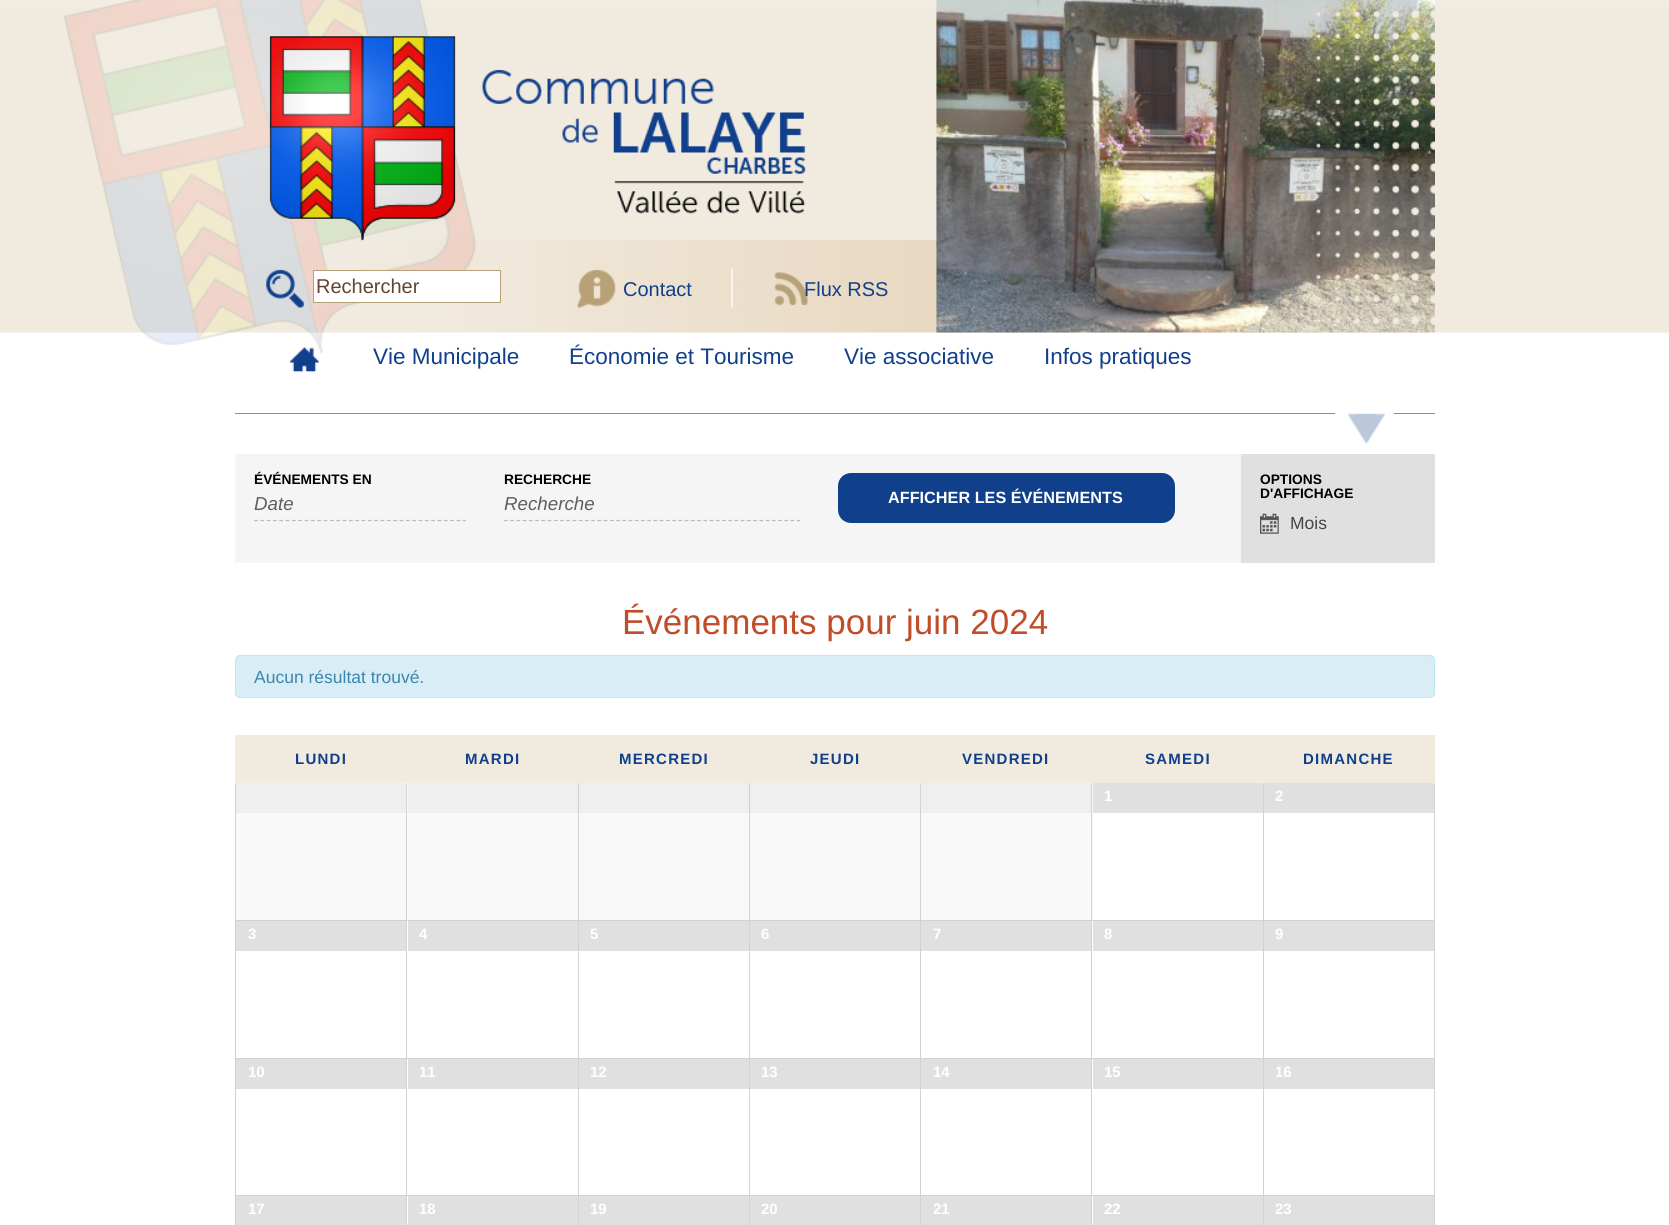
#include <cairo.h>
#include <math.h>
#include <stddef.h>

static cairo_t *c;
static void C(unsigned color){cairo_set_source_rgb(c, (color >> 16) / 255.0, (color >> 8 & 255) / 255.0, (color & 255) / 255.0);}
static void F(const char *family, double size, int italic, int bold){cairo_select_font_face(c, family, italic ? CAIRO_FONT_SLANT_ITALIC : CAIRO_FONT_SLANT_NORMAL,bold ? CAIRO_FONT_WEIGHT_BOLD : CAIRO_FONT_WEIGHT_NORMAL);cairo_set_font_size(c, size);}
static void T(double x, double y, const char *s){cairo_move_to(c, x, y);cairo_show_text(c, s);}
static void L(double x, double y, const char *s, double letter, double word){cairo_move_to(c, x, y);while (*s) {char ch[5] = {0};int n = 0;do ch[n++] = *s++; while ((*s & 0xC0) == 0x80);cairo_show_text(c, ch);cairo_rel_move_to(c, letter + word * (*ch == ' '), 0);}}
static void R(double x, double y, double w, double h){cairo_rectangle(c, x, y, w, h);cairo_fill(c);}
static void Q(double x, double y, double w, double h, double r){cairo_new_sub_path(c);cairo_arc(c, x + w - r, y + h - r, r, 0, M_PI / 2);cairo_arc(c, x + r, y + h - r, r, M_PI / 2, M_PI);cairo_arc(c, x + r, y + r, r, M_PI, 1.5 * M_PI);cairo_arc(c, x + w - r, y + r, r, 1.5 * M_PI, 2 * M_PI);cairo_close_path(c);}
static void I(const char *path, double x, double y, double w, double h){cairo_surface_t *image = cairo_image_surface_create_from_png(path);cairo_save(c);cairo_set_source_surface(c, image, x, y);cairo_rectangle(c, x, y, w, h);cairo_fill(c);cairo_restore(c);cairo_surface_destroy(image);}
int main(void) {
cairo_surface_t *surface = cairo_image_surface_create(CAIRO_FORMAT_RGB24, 1669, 1225);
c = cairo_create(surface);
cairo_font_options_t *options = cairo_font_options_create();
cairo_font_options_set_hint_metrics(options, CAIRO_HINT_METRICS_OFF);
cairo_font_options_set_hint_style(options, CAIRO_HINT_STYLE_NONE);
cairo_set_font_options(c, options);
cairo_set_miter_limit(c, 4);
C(0xffffff);
cairo_paint(c);
I("1.png",0,0,1669,354);
I("2.png",936,0,499,333);
I("3.png",269,36,537,205);
I("4.png",1316,10,119,316);
C(0xffffff);
cairo_rectangle(c,313.5,270.5,187,32);
cairo_fill_preserve(c);
C(0xb8a178);
cairo_set_line_width(c,1);
cairo_stroke(c);
F("Liberation Sans",20,0,0);
C(0x614530);
T(316,293,"Rechercher");
C(0x103f8b);
T(623,296,"Contact");
T(804,296,"Flux RSS");
I("5.png",289,347,30,25);
F("Liberation Sans",22.5,0,0);
T(373,364,"Vie Municipale");
T(569,364,"Économie et Tourisme");
T(844,364,"Vie associative");
T(1044,364,"Infos pratiques");
C(0x788fb8);
R(235,413,1200,1);
I("6.png",1335,413,59,31);
C(0xf5f5f5);
R(235,454,1006,109);
F("Liberation Sans",13.75,0,1);
C(0x000000);
T(254,484,"ÉVÉNEMENTS EN");
cairo_new_path(c);
cairo_move_to(c,254,520.5);
cairo_line_to(c,466,520.5);
C(0xb9b9b9);
cairo_set_line_width(c,1.2);
cairo_set_dash(c,(double[]){3.75,2.58},2,0);
cairo_stroke(c);
F("Liberation Sans",18.75,1,0);
C(0x5f5f5f);
T(254,510,"Date");
F("Liberation Sans",13.75,0,1);
C(0x000000);
T(504,484,"RECHERCHE");
cairo_new_path(c);
cairo_move_to(c,504,520.5);
cairo_line_to(c,800,520.5);
C(0xb9b9b9);
cairo_set_dash(c,(double[]){3.75,2.48},2,0);
cairo_stroke(c);
F("Liberation Sans",18.75,1,0);
C(0x5f5f5f);
T(504,510,"Recherche");
C(0x103f8b);
Q(838,473,337,50,13);
cairo_fill(c);
F("Liberation Sans",16.25,0,1);
C(0xffffff);
T(888,503,"AFFICHER LES ÉVÉNEMENTS");
C(0xe0e0e0);
R(1241,454,194,109);
F("Liberation Sans",13.75,0,1);
C(0x000000);
T(1260,484,"OPTIONS");
T(1260,498,"D'AFFICHAGE");
I("7.png",1260,513,19,21);
F("Liberation Sans",17.5,0,0);
C(0x444444);
T(1290,529,"Mois");
F("Liberation Sans",35,0,0);
C(0xc04c29);
T(622,634,"Événements pour juin 2024");
C(0xd9edf7);
Q(235.5,655.5,1199,42,4.5);
cairo_fill_preserve(c);
C(0xbce8f1);
cairo_set_line_width(c,1);
cairo_set_dash(c,NULL,0,0);
cairo_stroke(c);
F("Liberation Sans",17.5,0,0);
C(0x3a87ad);
T(254,683,"Aucun résultat trouvé.");
C(0xf1ebdf);
R(236,735,342,48);
C(0xd2d2d2);
R(1434,783,1,442);
R(1263,1195,1,30);
R(1263,1195,172,1);
R(1263,1058,1,138);
R(1263,1058,172,1);
R(1263,920,1,139);
R(1263,920,172,1);
R(1263,783,1,138);
R(1091,1195,1,30);
R(1091,1195,173,1);
R(1091,1058,1,138);
R(1091,1058,173,1);
R(1091,920,1,139);
R(1091,920,173,1);
C(0xf9f9f9);
R(921,783,172,137);
C(0xd2d2d2);
R(1091,783,1,138);
R(920,1195,1,30);
R(920,1195,173,1);
R(920,1058,1,138);
R(920,1058,173,1);
R(920,920,1,139);
R(920,920,173,1);
R(920,783,1,138);
R(749,1195,1,30);
R(749,1195,172,1);
R(749,1058,1,138);
R(749,1058,172,1);
R(749,920,1,139);
R(749,920,172,1);
R(749,783,1,138);
R(578,1195,1,30);
R(578,1195,172,1);
R(578,1058,1,138);
R(578,1058,172,1);
R(578,920,1,139);
R(578,920,172,1);
R(578,783,1,138);
R(406,1195,1,30);
R(406,1195,173,1);
R(406,1058,1,138);
R(406,1058,173,1);
R(406,920,1,139);
R(406,920,173,1);
C(0xf9f9f9);
R(236,783,172,137);
C(0xd2d2d2);
R(406,783,1,138);
R(235,1195,1,30);
R(235,1195,173,1);
R(235,1058,1,138);
R(235,1058,173,1);
R(235,920,1,139);
R(235,920,173,1);
R(235,783,1,138);
C(0xf1ebdf);
R(235,735,1,49);
F("Liberation Sans",15,0,1);
C(0x103f8b);
L(295,764,"LUNDI",1.25,0);
C(0xf1ebdf);
R(406,783,1,1);
C(0x103f8b);
L(465,764,"MARDI",1.25,0);
C(0xf1ebdf);
R(579,735,170,48);
R(578,735,1,49);
C(0x103f8b);
L(619,764,"MERCREDI",1.25,0);
C(0xf1ebdf);
R(750,735,170,48);
R(749,735,1,49);
C(0x103f8b);
L(810,764,"JEUDI",1.25,0);
C(0xf1ebdf);
R(921,735,342,48);
R(920,735,1,49);
C(0x103f8b);
L(962,764,"VENDREDI",1.25,0);
C(0xf1ebdf);
R(1091,783,1,1);
C(0x103f8b);
L(1145,764,"SAMEDI",1.25,0);
C(0xf1ebdf);
R(1264,735,170,48);
R(1434,735,1,49);
R(1263,735,1,49);
C(0x103f8b);
L(1303,764,"DIMANCHE",1.25,0);
C(0xefefef);
R(236,783,170,30);
C(0xf9f9f9);
R(408,813,170,107);
C(0xefefef);
R(408,783,170,30);
C(0xf9f9f9);
R(579,813,170,107);
C(0xefefef);
R(579,783,170,30);
C(0xf9f9f9);
R(750,813,170,107);
C(0xefefef);
R(750,783,170,30);
R(921,783,170,30);
C(0xe0e0e0);
R(1093,783,170,30);
C(0xffffff);
T(1104,801,"1");
C(0xe0e0e0);
R(1264,783,170,30);
C(0xffffff);
T(1275,801,"2");
C(0xe0e0e0);
R(236,921,170,30);
C(0xffffff);
T(248,939,"3");
C(0xe0e0e0);
R(408,921,170,30);
C(0xffffff);
T(419,939,"4");
C(0xe0e0e0);
R(579,921,170,30);
C(0xffffff);
T(590,939,"5");
C(0xe0e0e0);
R(750,921,170,30);
C(0xffffff);
T(761,939,"6");
C(0xe0e0e0);
R(921,921,170,30);
C(0xffffff);
T(933,939,"7");
C(0xe0e0e0);
R(1093,921,170,30);
C(0xffffff);
T(1104,939,"8");
C(0xe0e0e0);
R(1264,921,170,30);
C(0xffffff);
T(1275,939,"9");
C(0xe0e0e0);
R(236,1059,170,30);
C(0xffffff);
T(248,1077,"10");
C(0xe0e0e0);
R(408,1059,170,30);
C(0xffffff);
T(419,1077,"11");
C(0xe0e0e0);
R(579,1059,170,30);
C(0xffffff);
T(590,1077,"12");
C(0xe0e0e0);
R(750,1059,170,30);
C(0xffffff);
T(761,1077,"13");
C(0xe0e0e0);
R(921,1059,170,30);
C(0xffffff);
T(933,1077,"14");
C(0xe0e0e0);
R(1093,1059,170,30);
C(0xffffff);
T(1104,1077,"15");
C(0xe0e0e0);
R(1264,1059,170,30);
C(0xffffff);
T(1275,1077,"16");
C(0xe0e0e0);
R(236,1196,170,29);
C(0xffffff);
T(248,1214,"17");
C(0xe0e0e0);
R(408,1196,170,29);
C(0xffffff);
T(419,1214,"18");
C(0xe0e0e0);
R(579,1196,170,29);
C(0xffffff);
T(590,1214,"19");
C(0xe0e0e0);
R(750,1196,170,29);
C(0xffffff);
T(761,1214,"20");
C(0xe0e0e0);
R(921,1196,170,29);
C(0xffffff);
T(933,1214,"21");
C(0xe0e0e0);
R(1093,1196,170,29);
C(0xffffff);
T(1104,1214,"22");
C(0xe0e0e0);
R(1264,1196,170,29);
C(0xffffff);
T(1275,1214,"23");
cairo_surface_write_to_png(surface, "o.png");
cairo_font_options_destroy(options);
cairo_destroy(c);
cairo_surface_destroy(surface);
return 0;
}
